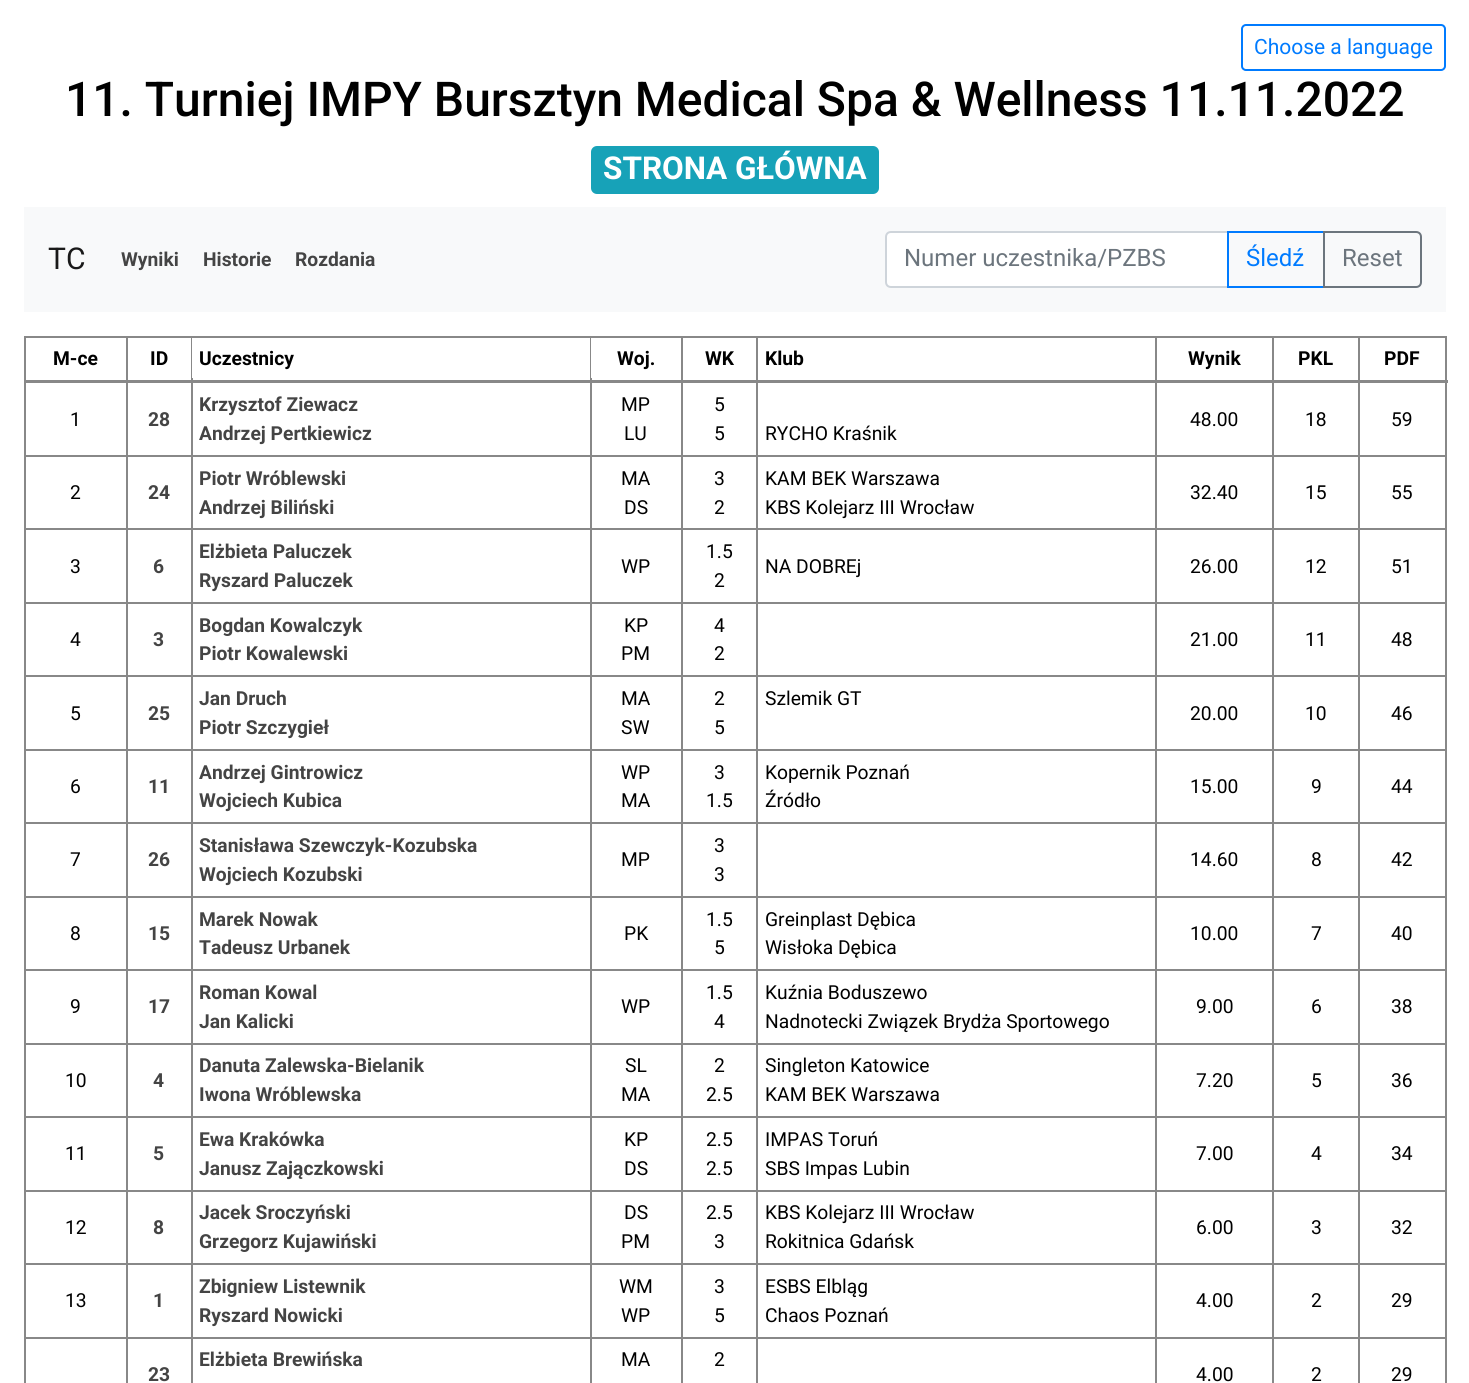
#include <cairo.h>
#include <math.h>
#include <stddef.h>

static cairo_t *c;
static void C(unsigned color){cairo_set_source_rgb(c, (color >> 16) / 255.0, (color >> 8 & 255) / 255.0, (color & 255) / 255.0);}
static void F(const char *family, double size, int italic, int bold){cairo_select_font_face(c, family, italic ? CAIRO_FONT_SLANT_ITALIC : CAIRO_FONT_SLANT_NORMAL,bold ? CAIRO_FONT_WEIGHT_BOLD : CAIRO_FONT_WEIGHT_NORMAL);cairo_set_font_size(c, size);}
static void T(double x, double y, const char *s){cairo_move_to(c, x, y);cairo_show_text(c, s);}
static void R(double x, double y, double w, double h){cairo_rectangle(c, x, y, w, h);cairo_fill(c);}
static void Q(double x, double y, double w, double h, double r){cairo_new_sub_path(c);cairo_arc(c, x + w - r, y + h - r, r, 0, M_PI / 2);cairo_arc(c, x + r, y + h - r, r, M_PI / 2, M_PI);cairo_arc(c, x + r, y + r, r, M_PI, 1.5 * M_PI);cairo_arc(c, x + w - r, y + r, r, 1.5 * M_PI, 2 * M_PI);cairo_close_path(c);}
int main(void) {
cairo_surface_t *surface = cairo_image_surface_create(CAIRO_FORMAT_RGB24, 1469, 1383);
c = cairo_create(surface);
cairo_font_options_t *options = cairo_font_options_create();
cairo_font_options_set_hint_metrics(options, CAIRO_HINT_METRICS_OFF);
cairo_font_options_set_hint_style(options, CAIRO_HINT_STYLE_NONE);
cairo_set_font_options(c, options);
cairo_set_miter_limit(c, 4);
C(0xffffff);
cairo_paint(c);
Q(1242,25,203,45,4);
C(0x007bff);
cairo_stroke(c);
F("Roboto",21,0,0);
T(1254,54,"Choose a language");
F("Roboto Medium",48,0,0);
C(0x000000);
T(65,116,"11. Turniej IMPY Bursztyn Medical Spa & Wellness 11.11.2022");
C(0x17a2b8);
Q(591,146,288,48,6);
cairo_fill(c);
F("Roboto",31.5,0,1);
C(0xffffff);
T(603,179,"STRONA GŁÓWNA");
C(0xf8f9fa);
R(24,207,1422,105);
F("Roboto",30,0,0);
C(0x191919);
T(48,269,"TC");
F("Roboto",19.25,0,1);
C(0x444444);
T(121,266,"Wyniki");
T(203,266,"Historie");
T(295,266,"Rozdania");
C(0xffffff);
cairo_new_path(c);
cairo_move_to(c,891,232);
cairo_line_to(c,1228,232);
cairo_line_to(c,1228,287);
cairo_line_to(c,891,287);
cairo_curve_to(c,888,287,886,285,886,282);
cairo_line_to(c,886,237);
cairo_curve_to(c,886,234,888,232,891,232);
cairo_close_path(c);
cairo_fill_preserve(c);
C(0xced4da);
cairo_stroke(c);
F("Roboto",24,0,0);
C(0x6c757d);
T(904,266,"Numer uczestnika/PZBS");
cairo_rectangle(c,1228,232,96,55);
C(0x007bff);
cairo_stroke(c);
T(1246,266,"Śledź");
cairo_new_path(c);
cairo_move_to(c,1324,232);
cairo_line_to(c,1416,232);
cairo_curve_to(c,1419,232,1421,234,1421,237);
cairo_line_to(c,1421,282);
cairo_curve_to(c,1421,285,1419,287,1416,287);
cairo_line_to(c,1324,287);
cairo_close_path(c);
C(0x6c757d);
cairo_stroke(c);
T(1342,266,"Reset");
C(0x888888);
R(24,336,1422,2);
R(1445,336,2,1047);
R(24,336,2,1047);
F("Roboto",19.25,0,1);
C(0x000000);
T(53,365,"M-ce");
T(150,365,"ID");
C(0x888888);
R(1358,455,88,2);
R(1358,528,88,2);
R(1358,602,88,2);
R(1358,675,88,2);
R(1358,749,88,2);
R(1358,822,88,2);
R(1358,896,88,2);
R(1358,969,88,2);
R(1358,1043,88,2);
R(1358,1116,88,2);
R(1358,1190,88,2);
R(1358,1263,88,2);
R(1358,1337,88,2);
R(1358,1337,2,46);
R(1272,1337,87,2);
R(1358,1263,2,75);
R(1272,1263,87,2);
R(1358,1190,2,75);
R(1272,1190,87,2);
R(1358,1116,2,75);
R(1272,1116,87,2);
R(1358,1043,2,75);
R(1272,1043,87,2);
R(1358,969,2,75);
R(1272,969,87,2);
R(1358,896,2,75);
R(1272,896,87,2);
R(1358,822,2,75);
R(1272,822,87,2);
R(1358,749,2,75);
R(1272,749,87,2);
R(1358,675,2,75);
R(1272,675,87,2);
R(1358,602,2,75);
R(1272,602,87,2);
R(1358,528,2,75);
R(1272,528,87,2);
R(1358,455,2,75);
R(1272,455,87,2);
R(1272,1337,2,46);
R(1155,1337,119,2);
R(1272,1263,2,75);
R(1155,1263,119,2);
R(1272,1190,2,75);
R(1155,1190,119,2);
R(1272,1116,2,75);
R(1155,1116,119,2);
R(1272,1043,2,75);
R(1155,1043,119,2);
R(1272,969,2,75);
R(1155,969,119,2);
R(1272,896,2,75);
R(1155,896,119,2);
R(1272,822,2,75);
R(1155,822,119,2);
R(1272,749,2,75);
R(1155,749,119,2);
R(1272,675,2,75);
R(1155,675,119,2);
R(1272,602,2,75);
R(1155,602,119,2);
R(1272,528,2,75);
R(1155,528,119,2);
R(1272,455,2,75);
R(1155,455,119,2);
R(1155,1337,2,46);
R(756,1337,401,2);
R(1155,1263,2,75);
R(756,1263,401,2);
R(1155,1190,2,75);
R(756,1190,401,2);
R(1155,1116,2,75);
R(756,1116,401,2);
R(1155,1043,2,75);
R(756,1043,401,2);
R(1155,969,2,75);
R(756,969,401,2);
R(1155,896,2,75);
R(756,896,401,2);
R(1155,822,2,75);
R(756,822,401,2);
R(1155,749,2,75);
R(756,749,401,2);
R(1155,675,2,75);
R(756,675,401,2);
R(1155,602,2,75);
R(756,602,401,2);
R(1155,528,2,75);
R(756,528,401,2);
R(1155,455,2,75);
R(756,455,401,2);
R(756,1337,2,46);
R(681,1337,77,2);
R(756,1263,2,75);
R(681,1263,77,2);
R(756,1190,2,75);
R(681,1190,77,2);
R(756,1116,2,75);
R(681,1116,77,2);
R(756,1043,2,75);
R(681,1043,77,2);
R(756,969,2,75);
R(681,969,77,2);
R(756,896,2,75);
R(681,896,77,2);
R(756,822,2,75);
R(681,822,77,2);
R(756,749,2,75);
R(681,749,77,2);
R(756,675,2,75);
R(681,675,77,2);
R(756,602,2,75);
R(681,602,77,2);
R(756,528,2,75);
R(681,528,77,2);
R(756,455,2,75);
R(681,455,77,2);
R(681,1337,2,46);
R(590,1337,93,2);
R(681,1263,2,75);
R(590,1263,93,2);
R(681,1190,2,75);
R(590,1190,93,2);
R(681,1116,2,75);
R(590,1116,93,2);
R(681,1043,2,75);
R(590,1043,93,2);
R(681,969,2,75);
R(590,969,93,2);
R(681,896,2,75);
R(590,896,93,2);
R(681,822,2,75);
R(590,822,93,2);
R(681,749,2,75);
R(590,749,93,2);
R(681,675,2,75);
R(590,675,93,2);
R(681,602,2,75);
R(590,602,93,2);
R(681,528,2,75);
R(590,528,93,2);
R(681,455,2,75);
R(590,455,93,2);
R(590,1337,2,46);
R(191,1337,400,2);
R(590,1263,2,75);
R(191,1263,400,2);
R(590,1190,2,75);
R(191,1190,400,2);
R(590,1116,2,75);
R(191,1116,400,2);
R(590,1043,2,75);
R(191,1043,400,2);
R(590,969,2,75);
R(191,969,400,2);
R(590,896,2,75);
R(191,896,400,2);
R(590,822,2,75);
R(191,822,400,2);
R(590,749,2,75);
R(191,749,400,2);
R(590,675,2,75);
R(191,675,400,2);
R(590,602,2,75);
R(191,602,400,2);
R(590,528,2,75);
R(191,528,400,2);
R(590,455,2,75);
R(191,455,400,2);
R(191,1337,2,46);
R(126,1337,66,2);
R(191,1263,2,75);
R(126,1263,66,2);
R(191,1190,2,75);
R(126,1190,66,2);
R(191,1116,2,75);
R(126,1116,66,2);
R(191,1043,2,75);
R(126,1043,66,2);
R(191,969,2,75);
R(126,969,66,2);
R(191,896,2,75);
R(126,896,66,2);
R(191,822,2,75);
R(126,822,66,2);
R(191,749,2,75);
R(126,749,66,2);
R(191,675,2,75);
R(126,675,66,2);
R(191,602,2,75);
R(126,602,66,2);
R(191,528,2,75);
R(126,528,66,2);
R(191,455,2,75);
R(126,455,66,2);
R(191,336,2,120);
C(0xffffff);
R(192,338,1,40);
C(0x000000);
T(199,365,"Uczestnicy");
C(0x888888);
R(590,336,2,120);
C(0xffffff);
R(591,338,1,40);
C(0x000000);
T(617,365,"Woj.");
T(705,365,"WK");
T(765,365,"Klub");
T(1188,365,"Wynik");
T(1298,365,"PKL");
C(0x888888);
R(126,1337,2,46);
R(24,1337,104,2);
R(126,1263,2,75);
R(24,1263,104,2);
R(126,1190,2,75);
R(24,1190,104,2);
R(126,1116,2,75);
R(24,1116,104,2);
R(126,1043,2,75);
R(24,1043,104,2);
R(126,969,2,75);
R(24,969,104,2);
R(126,896,2,75);
R(24,896,104,2);
R(126,822,2,75);
R(24,822,104,2);
R(126,749,2,75);
R(24,749,104,2);
R(126,675,2,75);
R(24,675,104,2);
R(126,602,2,75);
R(24,602,104,2);
R(126,528,2,75);
R(24,528,104,2);
R(126,455,2,75);
R(24,455,104,2);
R(126,336,2,120);
R(681,336,2,120);
R(1155,336,2,120);
R(1272,336,2,120);
R(1358,336,2,120);
R(756,336,2,120);
R(24,380,1424,3);
C(0x000000);
T(1384,365,"PDF");
F("Roboto",19.25,0,0);
T(70,426,"1");
F("Roboto",19.25,0,1);
C(0x444444);
T(148,426,"28");
T(199,411,"Krzysztof Ziewacz");
T(199,440,"Andrzej Pertkiewicz");
F("Roboto",19.25,0,0);
C(0x000000);
T(621,411,"MP");
T(624,440,"LU");
T(714,411,"5");
T(714,440,"5");
T(1190,426,"48.00");
T(1305,426,"18");
T(1391,426,"59");
T(765,440,"RYCHO Kraśnik");
T(70,499,"2");
F("Roboto",19.25,0,1);
C(0x444444);
T(148,499,"24");
T(199,485,"Piotr Wróblewski");
T(199,514,"Andrzej Biliński");
F("Roboto",19.25,0,0);
C(0x000000);
T(621,485,"MA");
T(624,514,"DS");
T(714,485,"3");
T(714,514,"2");
T(765,485,"KAM BEK Warszawa");
T(765,514,"KBS Kolejarz III Wrocław");
T(1190,499,"32.40");
T(1305,499,"15");
T(1391,499,"55");
T(70,573,"3");
F("Roboto",19.25,0,1);
C(0x444444);
T(153,573,"6");
T(199,558,"Elżbieta Paluczek");
T(199,587,"Ryszard Paluczek");
F("Roboto",19.25,0,0);
C(0x000000);
T(621,573,"WP");
T(706,558,"1.5");
T(714,587,"2");
T(765,573,"NA DOBREj");
T(1190,573,"26.00");
T(1305,573,"12");
T(1391,573,"51");
T(70,646,"4");
F("Roboto",19.25,0,1);
C(0x444444);
T(153,646,"3");
T(199,632,"Bogdan Kowalczyk");
T(199,660,"Piotr Kowalewski");
F("Roboto",19.25,0,0);
C(0x000000);
T(624,632,"KP");
T(621,660,"PM");
T(714,632,"4");
T(714,660,"2");
T(1190,646,"21.00");
T(1305,646,"11");
T(1391,646,"48");
T(70,720,"5");
F("Roboto",19.25,0,1);
C(0x444444);
T(148,720,"25");
T(199,705,"Jan Druch");
T(199,734,"Piotr Szczygieł");
F("Roboto",19.25,0,0);
C(0x000000);
T(621,705,"MA");
T(621,734,"SW");
T(714,705,"2");
T(714,734,"5");
T(765,705,"Szlemik GT");
T(1190,720,"20.00");
T(1305,720,"10");
T(1391,720,"46");
T(70,793,"6");
F("Roboto",19.25,0,1);
C(0x444444);
T(148,793,"11");
T(199,779,"Andrzej Gintrowicz");
T(199,807,"Wojciech Kubica");
F("Roboto",19.25,0,0);
C(0x000000);
T(621,779,"WP");
T(621,807,"MA");
T(714,779,"3");
T(706,807,"1.5");
T(765,779,"Kopernik Poznań");
T(765,807,"Źródło");
T(1190,793,"15.00");
T(1311,793,"9");
T(1391,793,"44");
T(70,866,"7");
F("Roboto",19.25,0,1);
C(0x444444);
T(148,866,"26");
T(199,852,"Stanisława Szewczyk-Kozubska");
T(199,881,"Wojciech Kozubski");
F("Roboto",19.25,0,0);
C(0x000000);
T(621,866,"MP");
T(714,852,"3");
T(714,881,"3");
T(1190,866,"14.60");
T(1311,866,"8");
T(1391,866,"42");
T(70,940,"8");
F("Roboto",19.25,0,1);
C(0x444444);
T(148,940,"15");
T(199,926,"Marek Nowak");
T(199,954,"Tadeusz Urbanek");
F("Roboto",19.25,0,0);
C(0x000000);
T(624,940,"PK");
T(706,926,"1.5");
T(714,954,"5");
T(765,926,"Greinplast Dębica");
T(765,954,"Wisłoka Dębica");
T(1190,940,"10.00");
T(1311,940,"7");
T(1391,940,"40");
T(70,1013,"9");
F("Roboto",19.25,0,1);
C(0x444444);
T(148,1013,"17");
T(199,999,"Roman Kowal");
T(199,1028,"Jan Kalicki");
F("Roboto",19.25,0,0);
C(0x000000);
T(621,1013,"WP");
T(706,999,"1.5");
T(714,1028,"4");
T(765,999,"Kuźnia Boduszewo");
T(765,1028,"Nadnotecki Związek Brydża Sportowego");
T(1196,1013,"9.00");
T(1311,1013,"6");
T(1391,1013,"38");
T(65,1087,"10");
F("Roboto",19.25,0,1);
C(0x444444);
T(153,1087,"4");
T(199,1072,"Danuta Zalewska-Bielanik");
T(199,1101,"Iwona Wróblewska");
F("Roboto",19.25,0,0);
C(0x000000);
T(625,1072,"SL");
T(621,1101,"MA");
T(714,1072,"2");
T(706,1101,"2.5");
T(765,1072,"Singleton Katowice");
T(765,1101,"KAM BEK Warszawa");
T(1196,1087,"7.20");
T(1311,1087,"5");
T(1391,1087,"36");
T(65,1160,"11");
F("Roboto",19.25,0,1);
C(0x444444);
T(153,1160,"5");
T(199,1146,"Ewa Krakówka");
T(199,1175,"Janusz Zajączkowski");
F("Roboto",19.25,0,0);
C(0x000000);
T(624,1146,"KP");
T(624,1175,"DS");
T(706,1146,"2.5");
T(706,1175,"2.5");
T(765,1146,"IMPAS Toruń");
T(765,1175,"SBS Impas Lubin");
T(1196,1160,"7.00");
T(1311,1160,"4");
T(1391,1160,"34");
T(65,1234,"12");
F("Roboto",19.25,0,1);
C(0x444444);
T(153,1234,"8");
T(199,1219,"Jacek Sroczyński");
T(199,1248,"Grzegorz Kujawiński");
F("Roboto",19.25,0,0);
C(0x000000);
T(624,1219,"DS");
T(621,1248,"PM");
T(706,1219,"2.5");
T(714,1248,"3");
T(765,1219,"KBS Kolejarz III Wrocław");
T(765,1248,"Rokitnica Gdańsk");
T(1196,1234,"6.00");
T(1311,1234,"3");
T(1391,1234,"32");
T(65,1307,"13");
F("Roboto",19.25,0,1);
C(0x444444);
T(153,1307,"1");
T(199,1293,"Zbigniew Listewnik");
T(199,1322,"Ryszard Nowicki");
F("Roboto",19.25,0,0);
C(0x000000);
T(619,1293,"WM");
T(621,1322,"WP");
T(714,1293,"3");
T(714,1322,"5");
T(765,1293,"ESBS Elbląg");
T(765,1322,"Chaos Poznań");
T(1196,1307,"4.00");
T(1311,1307,"2");
T(1391,1307,"29");
F("Roboto",19.25,0,1);
C(0x444444);
T(199,1366,"Elżbieta Brewińska");
F("Roboto",19.25,0,0);
C(0x000000);
T(621,1366,"MA");
T(714,1366,"2");
F("Roboto",19.25,0,1);
C(0x444444);
T(148,1381,"23");
F("Roboto",19.25,0,0);
C(0x000000);
T(1196,1381,"4.00");
T(1311,1381,"2");
T(1391,1381,"29");
cairo_surface_write_to_png(surface, "o.png");
cairo_font_options_destroy(options);
cairo_destroy(c);
cairo_surface_destroy(surface);
return 0;
}
